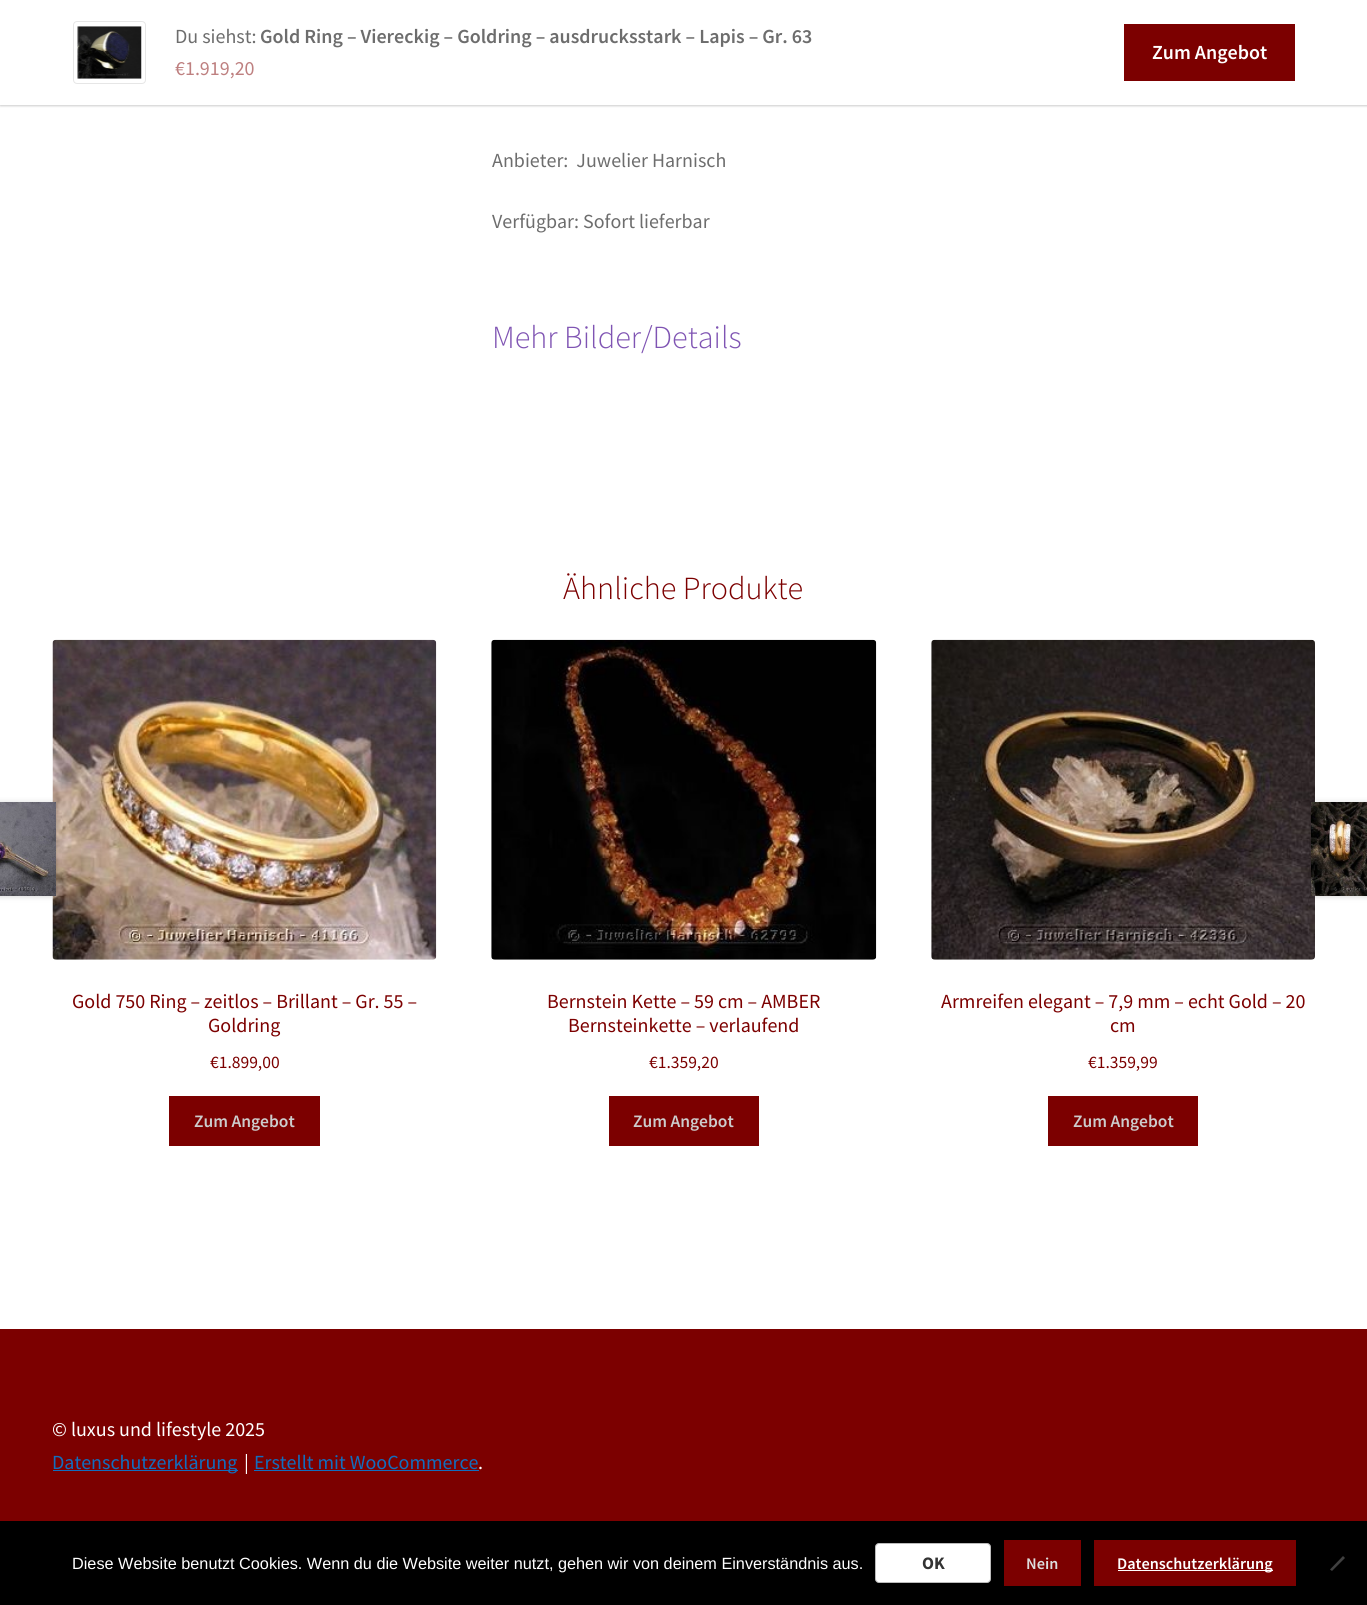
#include <cairo.h>
#include <math.h>
#include <stddef.h>

static cairo_t *c;
static void C(unsigned color){cairo_set_source_rgb(c, (color >> 16) / 255.0, (color >> 8 & 255) / 255.0, (color & 255) / 255.0);}
static void F(const char *family, double size, int italic, int bold){cairo_select_font_face(c, family, italic ? CAIRO_FONT_SLANT_ITALIC : CAIRO_FONT_SLANT_NORMAL,bold ? CAIRO_FONT_WEIGHT_BOLD : CAIRO_FONT_WEIGHT_NORMAL);cairo_set_font_size(c, size);}
static void T(double x, double y, const char *s){cairo_move_to(c, x, y);cairo_show_text(c, s);}
static void R(double x, double y, double w, double h){cairo_rectangle(c, x, y, w, h);cairo_fill(c);}
static void Q(double x, double y, double w, double h, double r){cairo_new_sub_path(c);cairo_arc(c, x + w - r, y + h - r, r, 0, M_PI / 2);cairo_arc(c, x + r, y + h - r, r, M_PI / 2, M_PI);cairo_arc(c, x + r, y + r, r, M_PI, 1.5 * M_PI);cairo_arc(c, x + w - r, y + r, r, 1.5 * M_PI, 2 * M_PI);cairo_close_path(c);}
static void S(double x, double y, double w, double h, double r, double blur, double alpha){cairo_push_group_with_content(c, CAIRO_CONTENT_ALPHA);cairo_set_operator(c, CAIRO_OPERATOR_SOURCE);for (int i = 15; i >= -15 && fmin(w, h) + blur * i / 3 > 0; i -= 2) {double e = blur * i / 6;cairo_set_source_rgba(c, 0, 0, 0, alpha * erfc((i - 1) / 8.5) / 2);Q(x - e, y - e, w + 2 * e, h + 2 * e, fmax(0, fmin(r + e + blur * .6, fmin(w, h) / 2 + e)));cairo_fill(c);}cairo_pattern_t *soft = cairo_pop_group(c);cairo_mask(c, soft);cairo_pattern_destroy(soft);}
static void I(const char *path, double x, double y, double w, double h){cairo_surface_t *image = cairo_image_surface_create_from_png(path);cairo_save(c);cairo_set_source_surface(c, image, x, y);cairo_rectangle(c, x, y, w, h);cairo_fill(c);cairo_restore(c);cairo_surface_destroy(image);}
int main(void) {
cairo_surface_t *surface = cairo_image_surface_create(CAIRO_FORMAT_RGB24, 1367, 1605);
c = cairo_create(surface);
cairo_font_options_t *options = cairo_font_options_create();
cairo_font_options_set_hint_metrics(options, CAIRO_HINT_METRICS_OFF);
cairo_font_options_set_hint_style(options, CAIRO_HINT_STYLE_NONE);
cairo_set_font_options(c, options);
cairo_set_miter_limit(c, 4);
C(0xffffff);
cairo_paint(c);
C(0x000000);
S(0,1,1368,105,0,1,.2);
C(0xffffff);
R(0,0,1367,105);
Q(73.5,21.5,72,62,3.5);
C(0xe6e6e6);
cairo_set_line_width(c,1);
cairo_stroke(c);
I("1.png",77,26,65,53);
F("Source Sans Pro",20,0,0);
C(0x6d6d6d);
T(175,43,"Du siehst:");
F("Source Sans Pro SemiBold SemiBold",20,0,0);
T(260,43,"Gold Ring – Viereckig – Goldring – ausdrucksstark – Lapis – Gr. 63");
F("Source Sans Pro",20,0,0);
C(0xbe8080);
T(175,75,"€1.919,20");
C(0x7c0000);
R(1124,24,171,57);
F("Source Sans Pro SemiBold SemiBold",20,0,0);
C(0xffffff);
T(1152,59,"Zum Angebot");
F("Source Sans Pro",20,0,0);
C(0x6d6d6d);
T(492,167,"Anbieter:  Juwelier Harnisch");
T(492,228,"Verfügbar: Sofort lieferbar");
F("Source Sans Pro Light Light",32.25,0,0);
C(0x7f54b3);
T(492,348,"Mehr Bilder/Details");
C(0x7c0000);
T(563,599,"Ähnliche Produkte");
I("2.png",52,639,385,321);
F("Source Sans Pro",20,0,0);
T(72,1008,"Gold 750 Ring – zeitlos – Brillant – Gr. 55 –");
T(208,1032,"Goldring");
F("Source Sans Pro",17.5,0,0);
T(210,1068,"€1.899,00");
R(169,1096,151,50);
F("Source Sans Pro SemiBold SemiBold",17.5,0,0);
C(0xcccccc);
T(194,1127,"Zum Angebot");
I("3.png",491,639,386,321);
F("Source Sans Pro",20,0,0);
C(0x7c0000);
T(547,1008,"Bernstein Kette – 59 cm – AMBER");
T(568,1032,"Bernsteinkette – verlaufend");
F("Source Sans Pro",17.5,0,0);
T(649,1068,"€1.359,20");
R(609,1096,150,50);
F("Source Sans Pro SemiBold SemiBold",17.5,0,0);
C(0xcccccc);
T(633,1127,"Zum Angebot");
I("4.png",931,639,384,321);
F("Source Sans Pro",20,0,0);
C(0x7c0000);
T(941,1008,"Armreifen elegant – 7,9 mm – echt Gold – 20");
T(1110,1032,"cm");
F("Source Sans Pro",17.5,0,0);
T(1088,1068,"€1.359,99");
R(1048,1096,150,50);
F("Source Sans Pro SemiBold SemiBold",17.5,0,0);
C(0xcccccc);
T(1073,1127,"Zum Angebot");
C(0x000000);
S(-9,803,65,93,0,3,.2);
I("5.png",0,802,56,94);
S(1311,803,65,93,0,3,.2);
I("6.png",1311,802,56,94);
C(0x7c0000);
R(0,1329,1367,192);
F("Source Sans Pro",20,0,0);
C(0xffffff);
T(52,1436,"© luxus und lifestyle 2025");
C(0x116ebf);
R(53,1470,185,1);
T(52,1469,"Datenschutzerklärung");
C(0xffffff);
T(244,1469,"|");
C(0x116ebf);
T(254,1469,"Erstellt mit WooCommerce");
R(254,1470,225,1);
C(0xffffff);
T(478,1469,".");
C(0x000000);
R(0,1521,1367,84);
F("Liberation Sans",16.25,0,0);
C(0xffffff);
T(72,1569,"Diese Website benutzt Cookies. Wenn du die Website weiter nutzt, gehen wir von deinem Einverständnis aus.");
Q(875.5,1543.5,115,39,3.5);
cairo_fill_preserve(c);
C(0xbbbbbb);
cairo_stroke(c);
F("Source Sans Pro",17.5,0,1);
C(0x333333);
T(922,1569,"OK");
C(0x7c0000);
R(1004,1540,77,46);
F("Source Sans Pro SemiBold SemiBold",16.25,0,0);
C(0xdddddd);
T(1026,1569,"Nein");
C(0x7c0000);
R(1094,1540,202,46);
C(0xffffff);
R(1118,1570,155,1);
T(1117,1569,"Datenschutzerklärung");
C(0x404040);
cairo_new_path(c);
cairo_move_to(c,1343,1556);
cairo_line_to(c,1345,1558);
cairo_line_to(c,1332,1571);
cairo_line_to(c,1330,1569.5);
cairo_close_path(c);
cairo_fill(c);
cairo_surface_write_to_png(surface, "o.png");
cairo_font_options_destroy(options);
cairo_destroy(c);
cairo_surface_destroy(surface);
return 0;
}
